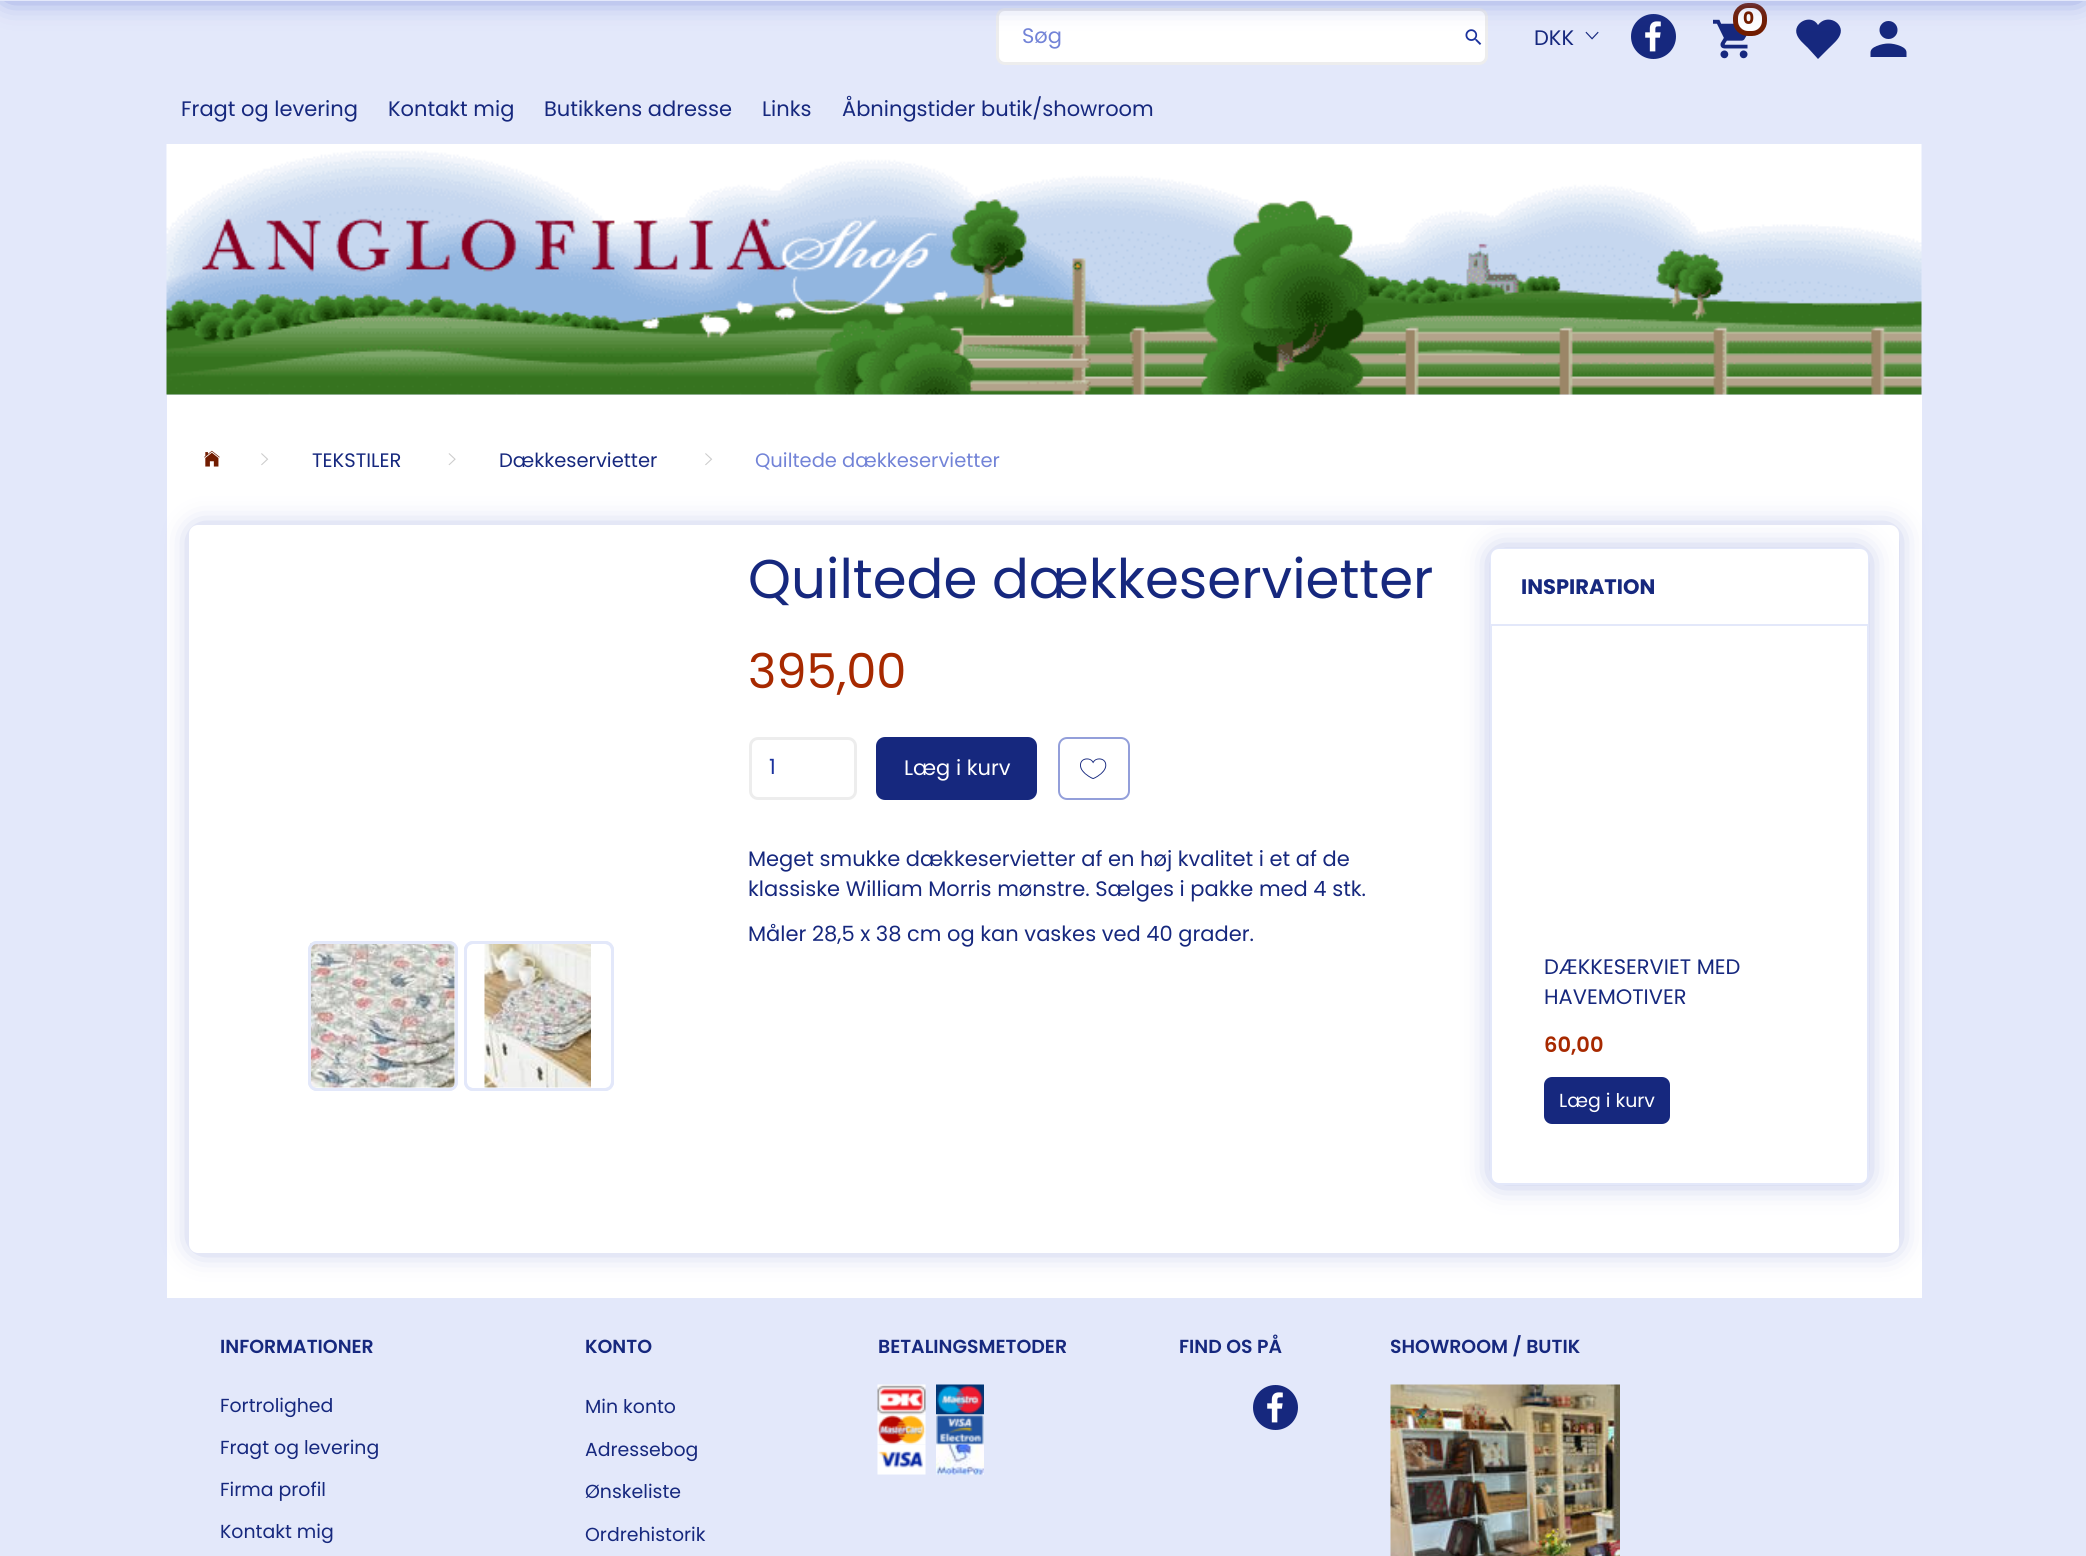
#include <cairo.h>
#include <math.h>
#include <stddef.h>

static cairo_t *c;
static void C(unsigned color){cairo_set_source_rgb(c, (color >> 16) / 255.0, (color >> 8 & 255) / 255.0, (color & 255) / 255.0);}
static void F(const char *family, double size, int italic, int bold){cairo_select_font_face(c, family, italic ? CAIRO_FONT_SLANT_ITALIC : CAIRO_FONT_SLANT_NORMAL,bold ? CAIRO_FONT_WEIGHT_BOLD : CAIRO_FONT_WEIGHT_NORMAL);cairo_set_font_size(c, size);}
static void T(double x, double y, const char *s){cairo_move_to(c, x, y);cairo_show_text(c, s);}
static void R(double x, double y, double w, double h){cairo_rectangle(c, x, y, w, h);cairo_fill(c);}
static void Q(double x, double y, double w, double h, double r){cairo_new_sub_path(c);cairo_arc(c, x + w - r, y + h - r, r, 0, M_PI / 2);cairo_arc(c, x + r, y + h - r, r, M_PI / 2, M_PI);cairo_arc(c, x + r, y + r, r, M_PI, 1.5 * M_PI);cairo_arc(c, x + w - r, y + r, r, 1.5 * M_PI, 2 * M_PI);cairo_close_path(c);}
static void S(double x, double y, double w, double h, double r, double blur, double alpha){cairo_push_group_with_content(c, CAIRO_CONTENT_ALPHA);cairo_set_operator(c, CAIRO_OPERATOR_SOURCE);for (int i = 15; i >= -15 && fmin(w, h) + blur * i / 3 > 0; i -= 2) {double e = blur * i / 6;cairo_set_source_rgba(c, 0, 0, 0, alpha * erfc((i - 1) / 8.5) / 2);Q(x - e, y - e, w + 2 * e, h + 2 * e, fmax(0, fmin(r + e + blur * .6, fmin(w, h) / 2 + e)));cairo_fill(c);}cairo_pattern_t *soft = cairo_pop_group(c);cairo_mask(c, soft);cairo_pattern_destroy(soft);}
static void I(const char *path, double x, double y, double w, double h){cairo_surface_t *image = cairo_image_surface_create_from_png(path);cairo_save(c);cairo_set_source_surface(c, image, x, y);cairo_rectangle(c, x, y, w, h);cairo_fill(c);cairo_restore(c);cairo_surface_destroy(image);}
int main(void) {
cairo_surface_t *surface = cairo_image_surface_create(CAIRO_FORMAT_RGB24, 2086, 1556);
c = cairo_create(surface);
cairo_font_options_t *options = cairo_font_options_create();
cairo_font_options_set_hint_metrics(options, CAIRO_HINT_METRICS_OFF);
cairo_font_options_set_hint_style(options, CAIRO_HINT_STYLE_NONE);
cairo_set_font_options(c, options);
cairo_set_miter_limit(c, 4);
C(0xe3e8fa);
cairo_paint(c);
C(0xffffff);
Q(997.5,9.5,489,54,7.5);
cairo_fill_preserve(c);
C(0xededed);
cairo_set_line_width(c,3);
cairo_stroke(c);
I("1.png",1465,29,17,16);
I("2.png",1585,31,14,9);
C(0x16287e);
cairo_arc(c,1653.5,36.5,22.5,0,2 * M_PI);
cairo_fill(c);
I("3.png",1645,21,16,31);
I("4.png",1713,19,35,40);
C(0xffffff);
Q(1735.5,5.5,29,28,12.5);
cairo_fill_preserve(c);
C(0x711c00);
cairo_set_line_width(c,5);
cairo_stroke(c);
C(0x16287e);
cairo_new_path(c);
cairo_move_to(c,1818,25);
cairo_curve_to(c,1827,13,1845,23,1840,35);
cairo_curve_to(c,1838,40,1833,44,1829,48);
cairo_line_to(c,1818,59);
cairo_line_to(c,1808,48);
cairo_curve_to(c,1804,44,1799,40,1797,35);
cairo_curve_to(c,1792,23,1811,13,1818,25);
cairo_close_path(c);
cairo_fill(c);
I("5.png",1870,21,37,36);
C(0x566bcf);
S(8,-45,2071,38,0,15,1);
C(0xe3e8fa);
R(0,0,2086,1);
F("Poppins",21,0,0);
C(0x7283d7);
T(1022,43,"Søg");
C(0x16287e);
T(1534,45,"DKK");
F("Poppins",17,0,1);
C(0x711c00);
T(1743,24,"0");
F("Poppins",21,0,0);
C(0x16287e);
T(181,116,"Fragt og levering");
T(388,116,"Kontakt mig");
T(544,116,"Butikkens adresse");
T(762,116,"Links");
T(842,116,"Åbningstider butik/showroom");
I("6.png",166,144,1756,251);
C(0xffffff);
R(167,395,1755,903);
I("7.png",204,450,16,17);
I("8.png",261,453,8,13);
F("Poppins",19.5,0,0);
C(0x16287e);
T(312,467,"TEKSTILER");
I("9.png",448,453,8,13);
T(499,467,"Dækkeservietter");
I("8.png",705,453,8,13);
C(0x7283d7);
T(755,467,"Quiltede dækkeservietter");
C(0x939fda);
S(197,533,1695,712,1.5,15,1);
C(0xffffff);
Q(189,525,1710,728,9);
cairo_fill(c);
F("Poppins",54.6,0,0);
C(0x16287e);
T(748,598,"Quiltede dækkeservietter");
F("Poppins",48,0,0);
C(0xa72900);
T(748,688,"395,00");
Q(750.5,738.5,105,60,7.5);
C(0xededed);
cairo_set_line_width(c,3);
cairo_stroke(c);
F("Poppins",21,0,0);
C(0x1b329d);
T(769,774,"1");
C(0x16287e);
Q(876,737,161,63,9);
cairo_fill(c);
C(0xffffff);
T(904,775,"Læg i kurv");
Q(1059,738,70,61,8);
C(0x939fda);
cairo_set_line_width(c,2);
cairo_stroke(c);
I("10.png",1080,758,27,21);
C(0x16287e);
T(748,866,"Meget smukke dækkeservietter af en høj kvalitet i et af de");
T(748,896,"klassiske William Morris mønstre. Sælges i pakke med 4 stk.");
T(748,941,"Måler 28,5 x 38 cm og kan vaskes ved 40 grader.");
Q(309.5,942.5,147,147,7.5);
C(0xe3e8fa);
cairo_set_line_width(c,3);
cairo_stroke(c);
I("11.png",310,943,145,145);
Q(309.5,942.5,147,147,7.5);
cairo_stroke(c);
Q(465.5,942.5,147,147,7.5);
cairo_stroke(c);
I("12.png",484,944,107,144);
Q(465.5,942.5,147,147,7.5);
cairo_stroke(c);
C(0x939fda);
S(1497,555,365,623,1.5,15,1);
C(0xffffff);
Q(1491,549,377,635,8);
cairo_fill_preserve(c);
C(0xe3e8fa);
cairo_set_line_width(c,2);
cairo_stroke(c);
C(0xffffff);
cairo_new_path(c);
cairo_move_to(c,1499,549);
cairo_line_to(c,1860,549);
cairo_curve_to(c,1864.5,549,1868,552.5,1868,557);
cairo_line_to(c,1868,626);
cairo_line_to(c,1491,626);
cairo_line_to(c,1491,557);
cairo_curve_to(c,1491,552.5,1494.5,549,1499,549);
cairo_close_path(c);
cairo_fill(c);
C(0xe3e8fa);
R(1491,624,377,2);
F("Poppins",21,0,1);
C(0x16287e);
T(1521,594,"INSPIRATION");
F("Poppins",21,0,0);
T(1544,974,"DÆKKESERVIET MED");
T(1544,1004,"HAVEMOTIVER");
F("Poppins SemiBold",21,0,0);
C(0xa72900);
T(1544,1052,"60,00");
C(0x16287e);
Q(1544,1077,126,47,8);
cairo_fill(c);
F("Poppins",18.9,0,0);
C(0xffffff);
T(1559,1107,"Læg i kurv");
F("Poppins SemiBold",18.9,0,0);
C(0x16287e);
T(220,1353,"INFORMATIONER");
F("Poppins",18.9,0,0);
T(220,1412,"Fortrolighed");
T(220,1454,"Fragt og levering");
T(220,1496,"Firma profil");
T(220,1538,"Kontakt mig");
F("Poppins SemiBold",18.9,0,0);
T(585,1353,"KONTO");
F("Poppins",18.9,0,0);
T(585,1413,"Min konto");
T(585,1456,"Adressebog");
T(585,1498,"Ønskeliste");
T(585,1541,"Ordrehistorik");
F("Poppins SemiBold",18.9,0,0);
T(878,1353,"BETALINGSMETODER");
I("13.png",877,1384,49,31);
I("14.png",936,1384,48,31);
I("15.png",877,1414,49,31);
I("16.png",936,1414,48,31);
I("17.png",877,1444,49,31);
I("18.png",936,1444,48,31);
T(1179,1353,"FIND OS PÅ");
cairo_new_path(c);
cairo_arc(c,1275.5,1407.5,22.5,0,2 * M_PI);
cairo_fill(c);
I("3.png",1267,1392,16,31);
T(1390,1353,"SHOWROOM / BUTIK");
I("19.png",1390,1384,230,172);
cairo_surface_write_to_png(surface, "o.png");
cairo_font_options_destroy(options);
cairo_destroy(c);
cairo_surface_destroy(surface);
return 0;
}
